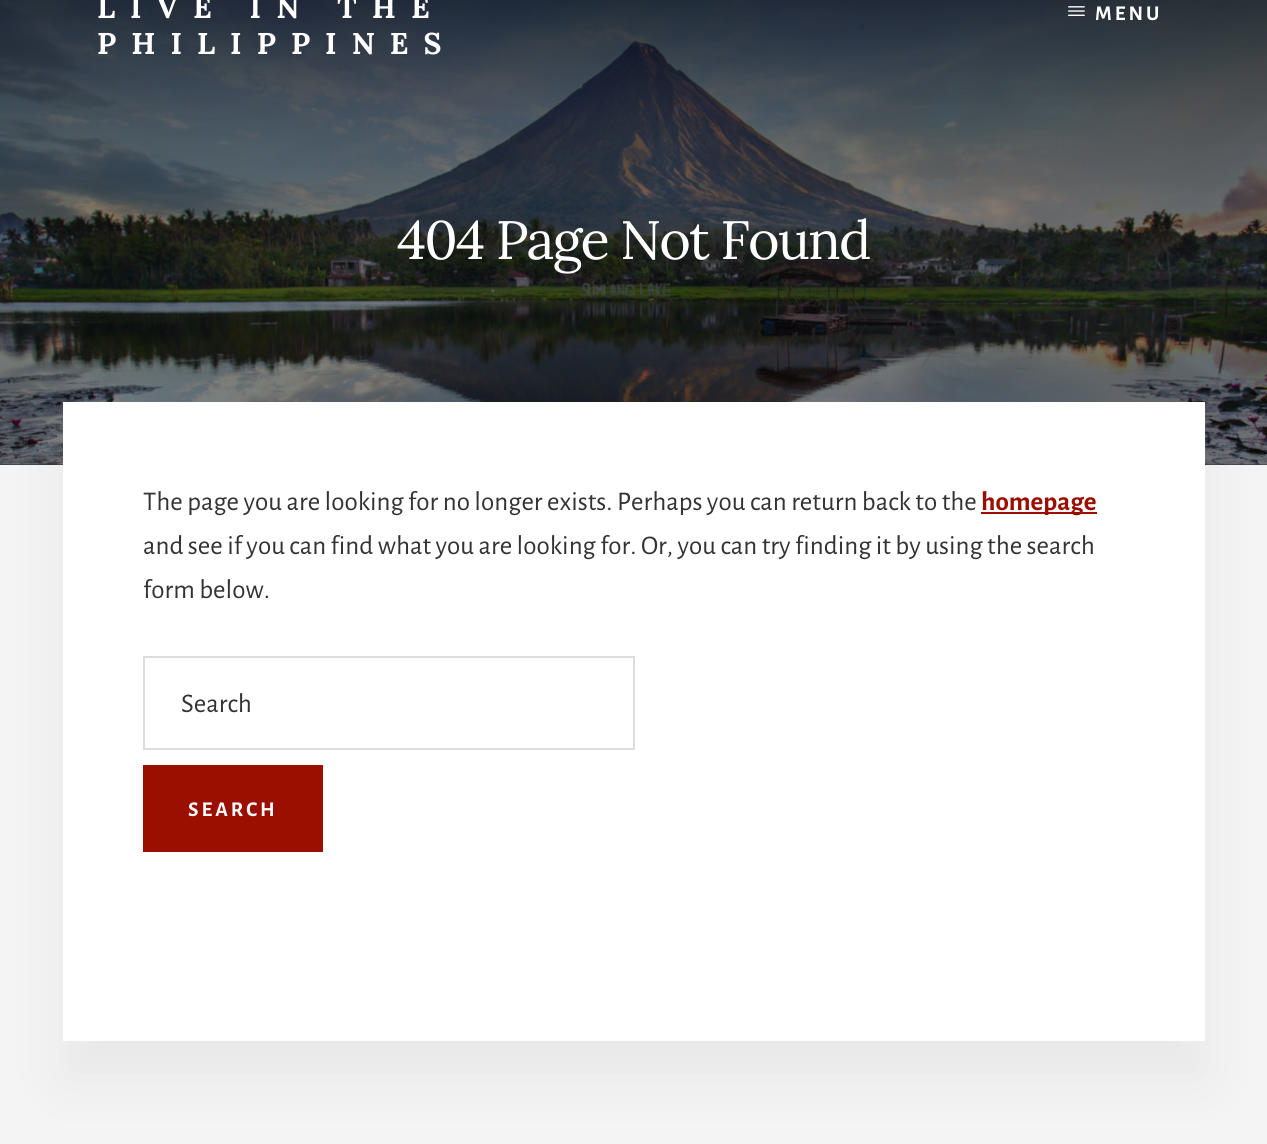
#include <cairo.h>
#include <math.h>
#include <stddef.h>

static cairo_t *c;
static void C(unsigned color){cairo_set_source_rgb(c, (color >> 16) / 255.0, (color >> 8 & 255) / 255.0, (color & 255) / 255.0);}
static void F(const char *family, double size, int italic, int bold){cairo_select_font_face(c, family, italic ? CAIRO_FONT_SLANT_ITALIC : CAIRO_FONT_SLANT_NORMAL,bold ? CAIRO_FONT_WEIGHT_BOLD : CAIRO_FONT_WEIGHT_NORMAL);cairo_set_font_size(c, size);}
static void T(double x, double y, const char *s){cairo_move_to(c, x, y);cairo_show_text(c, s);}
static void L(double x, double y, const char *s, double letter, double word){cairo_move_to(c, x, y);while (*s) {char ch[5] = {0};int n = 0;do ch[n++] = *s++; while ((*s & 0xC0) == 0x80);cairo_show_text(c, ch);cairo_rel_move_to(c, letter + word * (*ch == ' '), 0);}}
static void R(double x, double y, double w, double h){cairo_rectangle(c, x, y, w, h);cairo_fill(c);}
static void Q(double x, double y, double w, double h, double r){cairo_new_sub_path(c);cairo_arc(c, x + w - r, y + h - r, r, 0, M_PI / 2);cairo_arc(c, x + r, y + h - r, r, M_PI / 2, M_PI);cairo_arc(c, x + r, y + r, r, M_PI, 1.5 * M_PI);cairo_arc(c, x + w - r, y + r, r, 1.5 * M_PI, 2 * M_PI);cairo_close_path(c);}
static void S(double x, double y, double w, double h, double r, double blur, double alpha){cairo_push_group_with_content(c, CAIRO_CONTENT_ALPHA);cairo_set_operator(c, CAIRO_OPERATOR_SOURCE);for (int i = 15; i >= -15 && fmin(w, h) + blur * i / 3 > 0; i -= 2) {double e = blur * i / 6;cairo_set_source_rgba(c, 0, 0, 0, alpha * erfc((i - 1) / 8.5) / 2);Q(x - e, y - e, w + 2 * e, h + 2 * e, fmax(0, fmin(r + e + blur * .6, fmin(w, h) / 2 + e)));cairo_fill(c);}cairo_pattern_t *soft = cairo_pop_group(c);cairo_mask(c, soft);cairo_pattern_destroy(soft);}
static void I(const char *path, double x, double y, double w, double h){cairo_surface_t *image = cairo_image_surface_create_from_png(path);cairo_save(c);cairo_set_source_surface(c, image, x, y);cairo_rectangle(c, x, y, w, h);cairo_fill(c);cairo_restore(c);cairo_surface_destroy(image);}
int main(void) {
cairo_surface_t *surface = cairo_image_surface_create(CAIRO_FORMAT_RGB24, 1267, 1144);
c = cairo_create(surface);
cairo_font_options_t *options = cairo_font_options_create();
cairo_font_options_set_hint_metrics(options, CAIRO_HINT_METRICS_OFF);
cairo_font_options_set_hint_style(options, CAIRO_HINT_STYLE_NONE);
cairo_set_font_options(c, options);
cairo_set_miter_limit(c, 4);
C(0xf4f4f4);
cairo_paint(c);
C(0x111111);
R(0,464,1267,1);
I("1.png",0,0,1267,465);
F("Lora",30,0,1);
C(0xffffff);
L(97,18,"LIVE IN THE",15,0);
L(97,54,"PHILIPPINES",15,0);
I("2.png",1068,6,17,10);
F("Alegreya Sans",21,0,1);
L(1095,20,"MENU",3,0);
F("Lora",54,0,0);
L(397,259,"404 Page Not Found",-1.9,0);
C(0x000000);
S(63,440,1142,639,0,30,.05);
C(0xffffff);
R(63,402,1142,639);
F("Alegreya Sans",27,0,0);
C(0x333333);
T(143,510,"The page you are looking for no longer exists. Perhaps you can return back to the");
C(0x9b0f00);
R(981,512,116,2);
F("Alegreya Sans",27,0,1);
T(981,510,"homepage");
F("Alegreya Sans",27,0,0);
C(0x333333);
T(143,554,"and see if you can find what you are looking for. Or, you can try finding it by using the search");
T(143,598,"form below.");
cairo_rectangle(c,144,657,490,92);
C(0xdddddd);
cairo_stroke(c);
C(0x333333);
T(181,712,"Search");
C(0x9b0f00);
R(143,765,180,87);
F("Alegreya Sans",21,0,1);
C(0xffffff);
L(188,816,"SEARCH",3,0);
cairo_surface_write_to_png(surface, "o.png");
cairo_font_options_destroy(options);
cairo_destroy(c);
cairo_surface_destroy(surface);
return 0;
}
